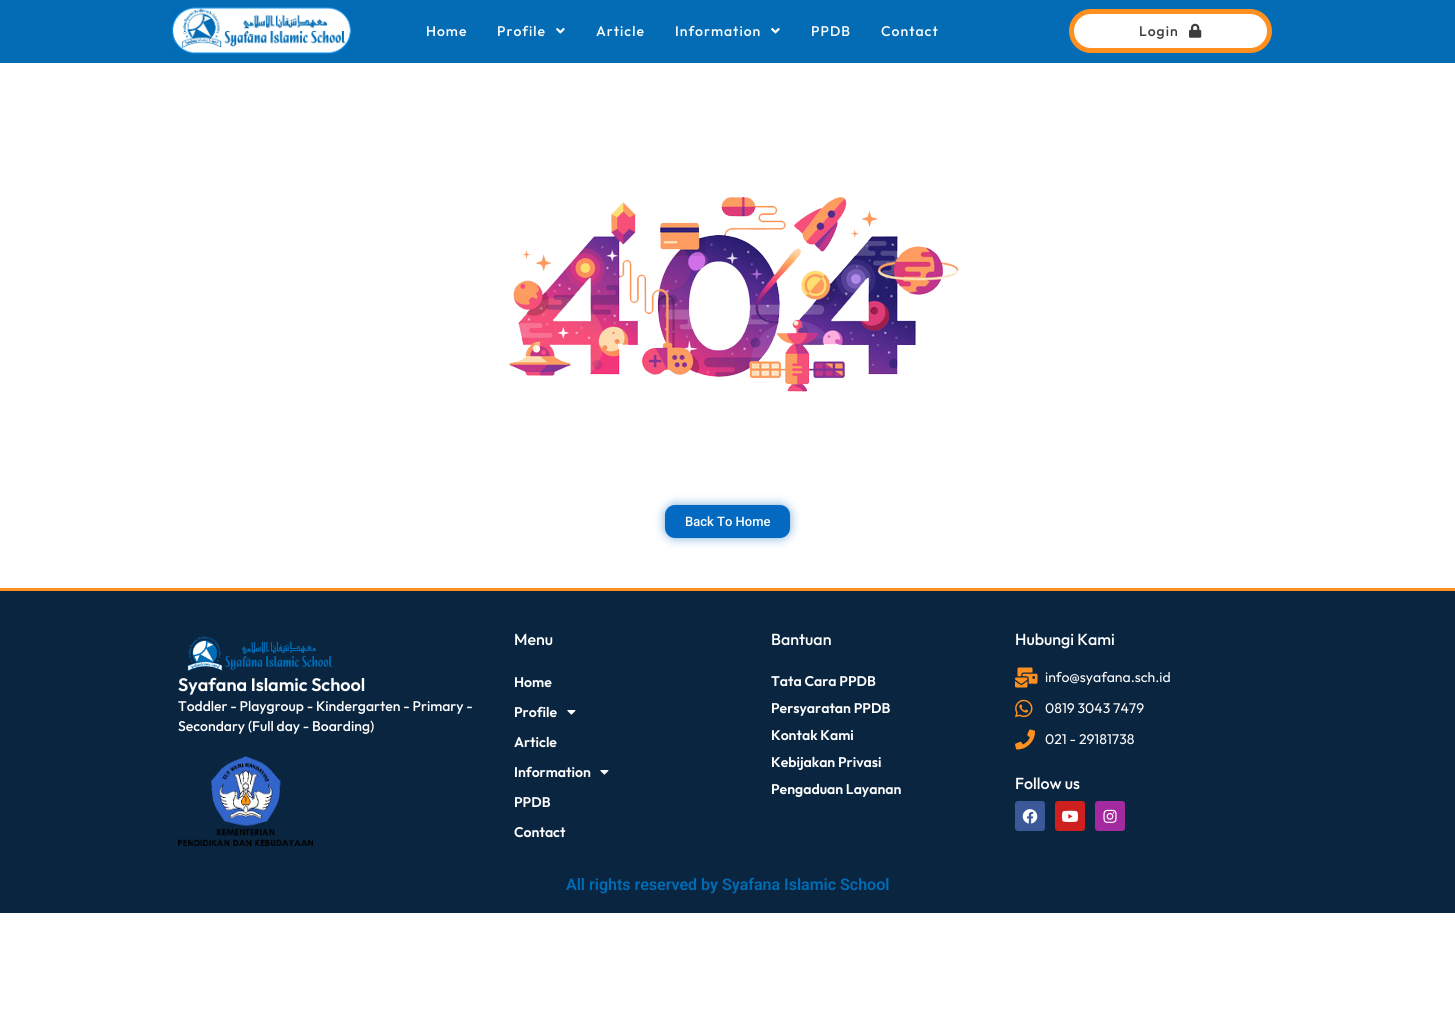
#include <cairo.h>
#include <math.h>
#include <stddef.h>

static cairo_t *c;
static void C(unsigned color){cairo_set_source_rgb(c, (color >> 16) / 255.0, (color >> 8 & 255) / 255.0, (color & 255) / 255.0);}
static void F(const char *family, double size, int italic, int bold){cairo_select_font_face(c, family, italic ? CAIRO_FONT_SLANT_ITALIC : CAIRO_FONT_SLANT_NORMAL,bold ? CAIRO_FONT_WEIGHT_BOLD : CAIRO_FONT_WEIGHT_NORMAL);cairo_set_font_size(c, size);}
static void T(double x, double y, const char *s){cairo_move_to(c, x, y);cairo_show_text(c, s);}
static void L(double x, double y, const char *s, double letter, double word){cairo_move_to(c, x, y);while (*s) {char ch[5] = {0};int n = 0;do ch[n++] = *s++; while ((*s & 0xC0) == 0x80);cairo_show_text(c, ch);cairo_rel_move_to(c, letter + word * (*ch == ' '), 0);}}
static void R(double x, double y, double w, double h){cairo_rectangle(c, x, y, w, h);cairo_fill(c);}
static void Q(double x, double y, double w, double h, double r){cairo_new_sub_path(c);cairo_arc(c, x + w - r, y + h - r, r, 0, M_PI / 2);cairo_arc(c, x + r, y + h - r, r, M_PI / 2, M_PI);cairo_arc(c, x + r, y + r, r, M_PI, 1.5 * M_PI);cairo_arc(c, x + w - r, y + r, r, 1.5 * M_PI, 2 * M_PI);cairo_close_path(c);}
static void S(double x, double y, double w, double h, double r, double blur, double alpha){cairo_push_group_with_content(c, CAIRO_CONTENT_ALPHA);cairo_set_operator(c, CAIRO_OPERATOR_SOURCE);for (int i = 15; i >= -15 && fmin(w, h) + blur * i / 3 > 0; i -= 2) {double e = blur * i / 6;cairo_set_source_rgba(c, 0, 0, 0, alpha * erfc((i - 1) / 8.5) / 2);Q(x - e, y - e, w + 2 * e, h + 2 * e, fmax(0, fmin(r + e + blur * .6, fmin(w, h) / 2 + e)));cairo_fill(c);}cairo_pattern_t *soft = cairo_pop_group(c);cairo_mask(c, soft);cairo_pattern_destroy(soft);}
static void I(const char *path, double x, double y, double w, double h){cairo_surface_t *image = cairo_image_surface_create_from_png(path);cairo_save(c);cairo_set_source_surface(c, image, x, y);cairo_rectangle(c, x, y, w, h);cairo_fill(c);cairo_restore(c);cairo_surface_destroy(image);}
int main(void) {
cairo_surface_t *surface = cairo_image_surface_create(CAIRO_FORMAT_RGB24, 1455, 1033);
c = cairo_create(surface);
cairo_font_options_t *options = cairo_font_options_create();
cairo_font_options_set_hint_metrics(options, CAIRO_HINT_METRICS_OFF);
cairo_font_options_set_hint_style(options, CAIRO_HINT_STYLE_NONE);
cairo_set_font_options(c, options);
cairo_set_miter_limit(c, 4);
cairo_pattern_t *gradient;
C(0xffffff);
cairo_paint(c);
gradient = cairo_pattern_create_linear(632,-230,823,293);
cairo_pattern_add_color_stop_rgba(gradient,0,0.012,0.412,0.757,1);
cairo_pattern_add_color_stop_rgba(gradient,0,0.016,0.424,0.706,1);
cairo_set_source(c,gradient);
cairo_pattern_destroy(gradient);
R(0,0,1455,63);
I("1.png",172,7,180,47);
F("Outfit Medium",14,0,0);
C(0xffffff);
L(426,36,"Home",1,0);
L(497,36,"Profile",1,0);
I("2.png",556,28,9,6);
L(596,36,"Article",1,0);
L(675,36,"Information",1,0);
I("2.png",771,28,9,6);
L(811,36,"PPDB",1,0);
L(881,36,"Contact",1,0);
Q(1071.5,11.5,198,39,19.5);
cairo_fill_preserve(c);
C(0xff8f1e);
cairo_set_line_width(c,5);
cairo_stroke(c);
C(0x3d3d3d);
L(1139,36,"Login",1,0);
I("3.png",1189,23,13,15);
I("4.png",508,197,451,195);
C(0x0369c1);
S(665,505,125,33,10,5,.57);
C(0x0369c1);
Q(665,505,125,33,10);
cairo_fill(c);
F("Roboto Medium",13,0,0);
C(0xffffff);
T(685,526,"Back To Home");
C(0x0a2540);
R(0,591,1455,322);
C(0xff8f1e);
R(0,588,1455,3);
I("5.png",187,636,146,36);
F("Outfit SemiBold",18,0,0);
C(0xffffff);
T(178,691,"Syafana Islamic School");
F("Outfit Medium",14,0,0);
T(178,711,"Toddler - Playgroup - Kindergarten - Primary -");
T(178,731,"Secondary (Full day - Boarding)");
I("6.png",178,756,135,90);
F("Outfit Medium",16,0,0);
T(514,645,"Menu");
F("Outfit SemiBold",14,0,0);
T(514,687,"Home");
T(514,717,"Profile");
I("7.png",567,710,9,5);
T(514,747,"Article");
T(514,777,"Information");
I("7.png",600,770,9,5);
T(514,807,"PPDB");
T(514,837,"Contact");
F("Outfit Medium",16,0,0);
T(771,645,"Bantuan");
F("Outfit SemiBold",14,0,0);
T(771,686,"Tata Cara PPDB");
T(771,713,"Persyaratan PPDB");
T(771,740,"Kontak Kami");
T(771,767,"Kebijakan Privasi");
T(771,794,"Pengaduan Layanan");
F("Outfit Medium",16,0,0);
T(1015,645,"Hubungi Kami");
I("8.png",1015,667,23,21);
F("Outfit",14,0,0);
T(1045,682,"info@syafana.sch.id");
I("9.png",1015,699,18,19);
T(1045,713,"0819 3043 7479");
I("10.png",1015,729,20,21);
T(1045,744,"021 - 29181738");
F("Outfit Medium",16,0,0);
T(1015,789,"Follow us");
C(0x3b5998);
Q(1015,801,30,30,3);
cairo_fill(c);
I("11.png",1022,809,16,15);
C(0xcd201f);
Q(1055,801,30,30,3);
cairo_fill(c);
I("12.png",1062,810,16,12);
C(0xa32a9f);
Q(1095,801,30,30,3);
cairo_fill(c);
I("13.png",1103,809,14,14);
F("Roboto SemiBold",16,0,0);
C(0x006cb5);
T(566,890,"All rights reserved by Syafana Islamic School");
cairo_surface_write_to_png(surface, "o.png");
cairo_font_options_destroy(options);
cairo_destroy(c);
cairo_surface_destroy(surface);
return 0;
}
